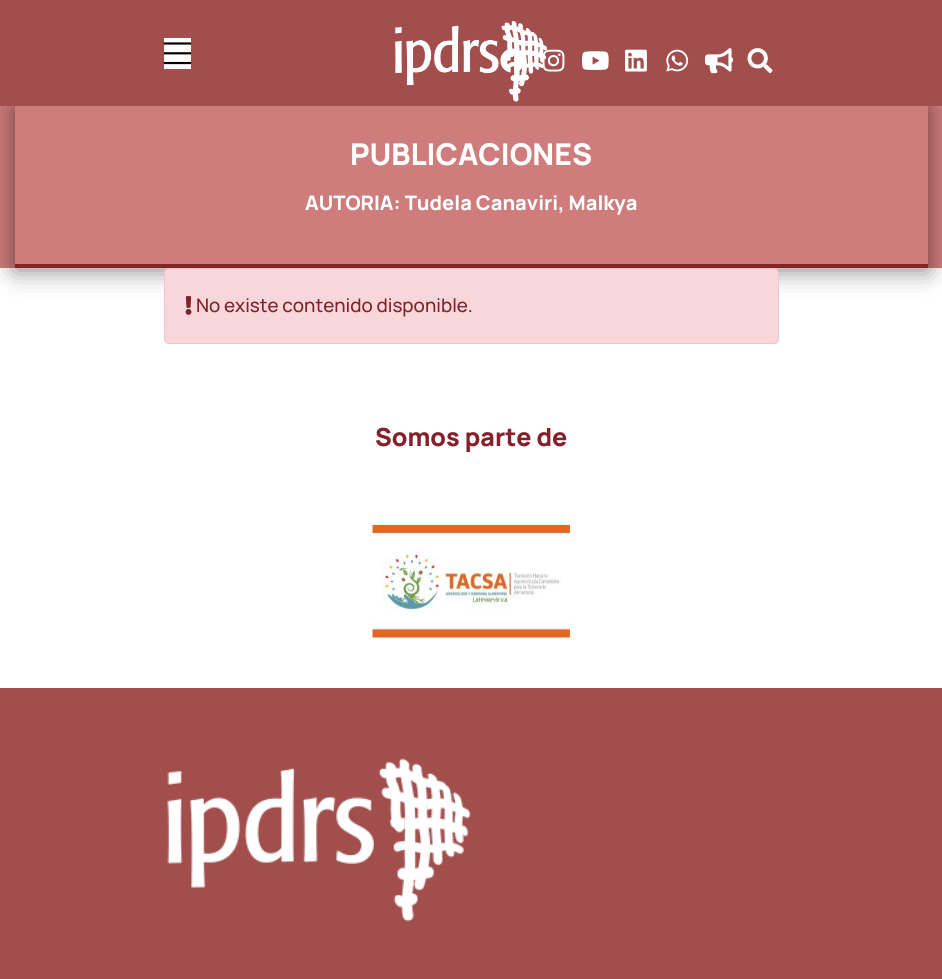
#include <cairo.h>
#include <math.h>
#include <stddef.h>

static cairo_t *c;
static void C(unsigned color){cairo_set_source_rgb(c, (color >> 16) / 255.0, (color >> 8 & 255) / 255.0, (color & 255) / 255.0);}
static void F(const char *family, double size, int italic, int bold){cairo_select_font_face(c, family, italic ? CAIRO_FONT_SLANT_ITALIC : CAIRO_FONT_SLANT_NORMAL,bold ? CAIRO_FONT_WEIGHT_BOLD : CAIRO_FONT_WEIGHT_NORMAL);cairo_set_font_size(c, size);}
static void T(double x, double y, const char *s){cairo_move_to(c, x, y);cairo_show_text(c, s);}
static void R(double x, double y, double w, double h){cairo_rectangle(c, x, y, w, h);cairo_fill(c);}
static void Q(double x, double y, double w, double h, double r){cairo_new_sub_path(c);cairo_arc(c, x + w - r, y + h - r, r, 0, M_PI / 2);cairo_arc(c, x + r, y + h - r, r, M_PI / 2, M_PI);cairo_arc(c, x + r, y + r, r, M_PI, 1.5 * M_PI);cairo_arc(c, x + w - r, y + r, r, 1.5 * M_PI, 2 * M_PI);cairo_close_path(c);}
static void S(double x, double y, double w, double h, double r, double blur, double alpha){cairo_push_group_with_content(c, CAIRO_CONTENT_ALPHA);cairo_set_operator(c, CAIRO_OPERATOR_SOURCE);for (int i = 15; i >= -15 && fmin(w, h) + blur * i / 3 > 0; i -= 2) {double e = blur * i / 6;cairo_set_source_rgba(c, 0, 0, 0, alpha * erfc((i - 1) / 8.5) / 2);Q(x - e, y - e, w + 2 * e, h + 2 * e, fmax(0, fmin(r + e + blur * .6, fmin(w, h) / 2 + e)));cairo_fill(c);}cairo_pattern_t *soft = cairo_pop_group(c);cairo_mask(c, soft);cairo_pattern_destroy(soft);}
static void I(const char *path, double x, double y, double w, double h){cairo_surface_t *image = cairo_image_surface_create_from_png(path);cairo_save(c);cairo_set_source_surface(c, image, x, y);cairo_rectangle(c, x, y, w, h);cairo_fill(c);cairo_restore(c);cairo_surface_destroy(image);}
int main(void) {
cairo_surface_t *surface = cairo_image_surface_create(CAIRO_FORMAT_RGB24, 942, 979);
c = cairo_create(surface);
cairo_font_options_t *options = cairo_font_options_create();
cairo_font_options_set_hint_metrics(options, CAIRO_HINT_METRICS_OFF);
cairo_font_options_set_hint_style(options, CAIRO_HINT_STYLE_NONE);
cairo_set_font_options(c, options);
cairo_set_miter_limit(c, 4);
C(0xffffff);
cairo_paint(c);
C(0xcf7c7c);
R(0,106,942,162);
cairo_save(c);
cairo_set_fill_rule(c,CAIRO_FILL_RULE_EVEN_ODD);
cairo_new_path(c);
cairo_move_to(c,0,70);
cairo_line_to(c,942,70);
cairo_line_to(c,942,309);
cairo_line_to(c,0,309);
cairo_close_path(c);
cairo_move_to(c,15,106);
cairo_line_to(c,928,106);
cairo_line_to(c,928,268);
cairo_line_to(c,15,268);
cairo_close_path(c);
cairo_clip(c);
C(0x000000);
S(15,109,913,161,0,12.5,.5);
cairo_restore(c);
C(0xa14e4d);
R(0,0,942,106);
C(0xffffff);
R(164,38,27,31);
I("1.png",163,42,29,23);
I("2.png",395,21,152,81);
I("3.png",500,48,23,25);
I("4.png",542,49,23,23);
I("5.png",582,51,27,19);
I("6.png",625,49,22,23);
I("7.png",666,49,23,23);
I("8.png",705,48,29,26);
I("9.png",747,48,26,26);
C(0x852525);
R(15,264,913,4);
F("Manrope ExtraBold",30,0,0);
C(0xffffff);
T(350,165,"PUBLICACIONES");
F("Manrope ExtraBold",20,0,0);
T(305,210,"AUTORIA: Tudela Canaviri, Malkya");
C(0xf8d7da);
Q(164.5,268.5,614,75,4.5);
cairo_fill_preserve(c);
C(0xf5c2c7);
cairo_set_line_width(c,1);
cairo_stroke(c);
I("10.png",185,296,7,19);
F("Manrope Medium",18.75,0,0);
C(0x842029);
T(196,312,"No existe contenido disponible.");
F("Manrope ExtraBold",25,0,0);
T(375,446,"Somos parte de");
I("11.png",372,524,198,114);
C(0xa14e4d);
R(0,688,942,291);
I("12.png",167,758,304,164);
cairo_surface_write_to_png(surface, "o.png");
cairo_font_options_destroy(options);
cairo_destroy(c);
cairo_surface_destroy(surface);
return 0;
}
